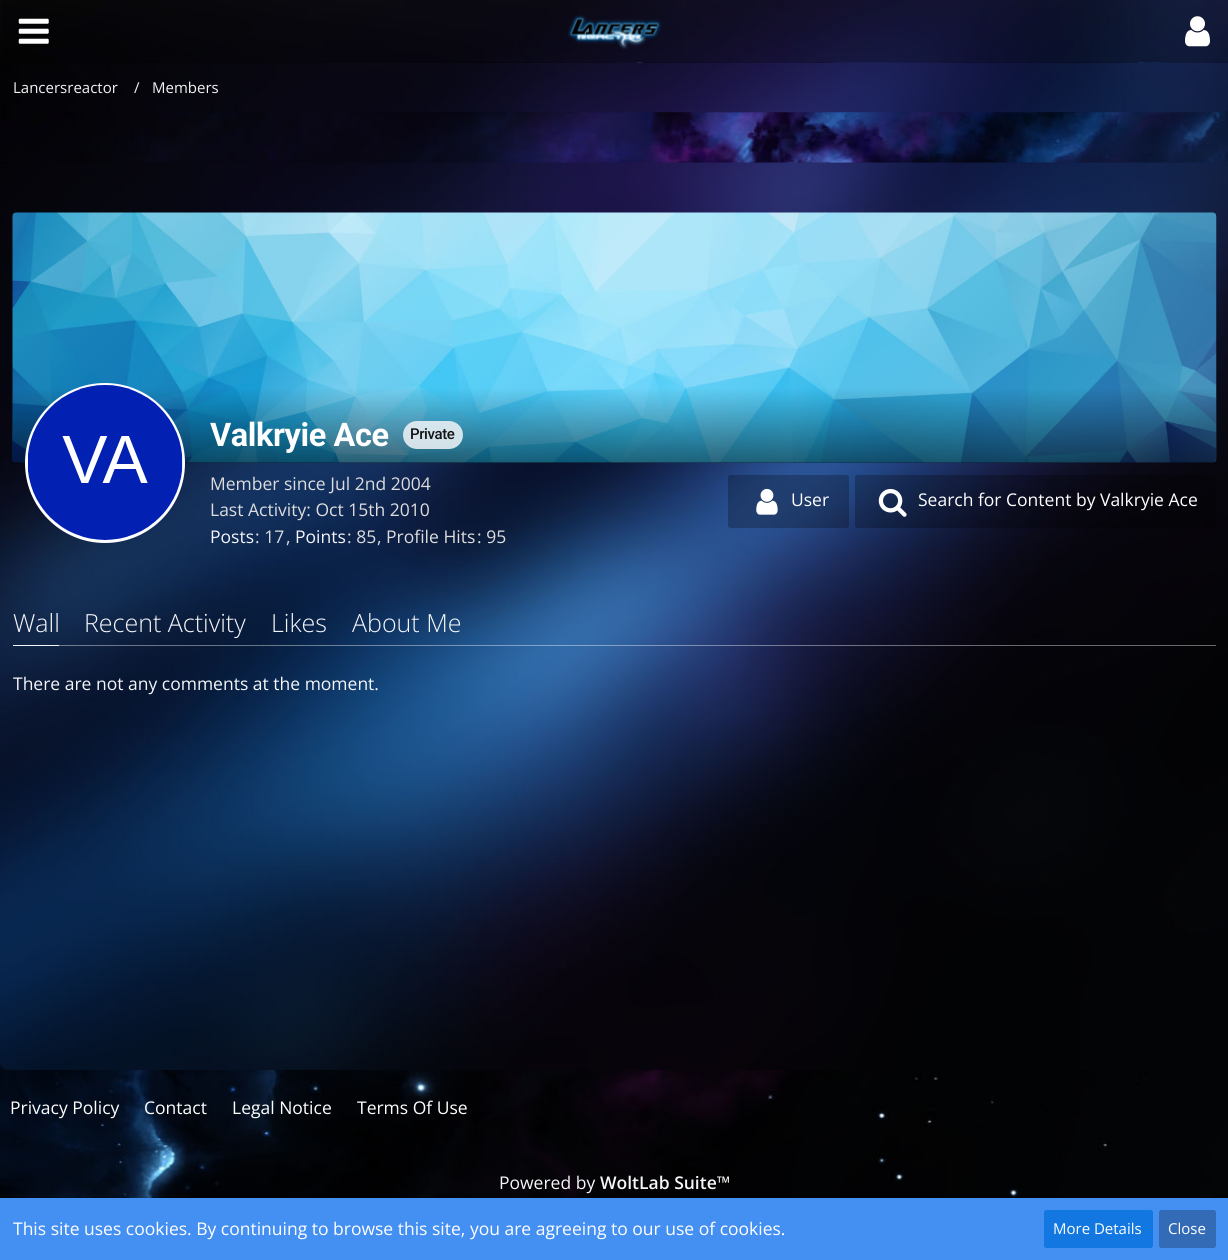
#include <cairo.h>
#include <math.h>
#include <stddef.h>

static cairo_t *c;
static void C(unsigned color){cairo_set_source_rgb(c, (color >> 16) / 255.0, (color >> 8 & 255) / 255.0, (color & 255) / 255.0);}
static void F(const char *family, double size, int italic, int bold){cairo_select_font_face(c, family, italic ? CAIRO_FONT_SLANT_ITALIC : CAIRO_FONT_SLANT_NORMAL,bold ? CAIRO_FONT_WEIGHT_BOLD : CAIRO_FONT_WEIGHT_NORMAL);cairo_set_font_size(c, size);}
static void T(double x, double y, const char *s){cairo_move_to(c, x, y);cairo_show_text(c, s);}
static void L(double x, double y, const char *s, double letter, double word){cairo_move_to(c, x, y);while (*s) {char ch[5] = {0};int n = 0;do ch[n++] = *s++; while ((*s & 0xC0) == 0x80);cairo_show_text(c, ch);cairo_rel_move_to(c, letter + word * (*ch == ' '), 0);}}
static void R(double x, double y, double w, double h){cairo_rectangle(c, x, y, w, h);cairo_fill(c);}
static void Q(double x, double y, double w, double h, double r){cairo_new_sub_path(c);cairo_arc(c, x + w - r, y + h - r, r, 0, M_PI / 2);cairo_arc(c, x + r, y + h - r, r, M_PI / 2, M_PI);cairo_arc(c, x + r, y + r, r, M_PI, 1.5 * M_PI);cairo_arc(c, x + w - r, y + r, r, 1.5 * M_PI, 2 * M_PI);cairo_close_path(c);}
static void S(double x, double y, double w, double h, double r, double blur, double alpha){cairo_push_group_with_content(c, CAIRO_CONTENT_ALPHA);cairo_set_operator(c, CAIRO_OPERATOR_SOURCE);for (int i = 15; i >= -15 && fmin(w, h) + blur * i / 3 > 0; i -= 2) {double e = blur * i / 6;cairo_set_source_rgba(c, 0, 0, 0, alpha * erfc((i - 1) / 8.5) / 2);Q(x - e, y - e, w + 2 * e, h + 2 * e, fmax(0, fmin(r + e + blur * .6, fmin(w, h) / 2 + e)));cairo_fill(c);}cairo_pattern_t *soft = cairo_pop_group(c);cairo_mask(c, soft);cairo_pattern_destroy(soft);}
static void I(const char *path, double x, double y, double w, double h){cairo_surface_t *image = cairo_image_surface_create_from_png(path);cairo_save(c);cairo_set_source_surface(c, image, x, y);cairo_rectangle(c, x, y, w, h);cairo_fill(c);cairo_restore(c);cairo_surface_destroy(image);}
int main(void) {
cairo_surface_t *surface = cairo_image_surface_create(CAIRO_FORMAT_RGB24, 1228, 1260);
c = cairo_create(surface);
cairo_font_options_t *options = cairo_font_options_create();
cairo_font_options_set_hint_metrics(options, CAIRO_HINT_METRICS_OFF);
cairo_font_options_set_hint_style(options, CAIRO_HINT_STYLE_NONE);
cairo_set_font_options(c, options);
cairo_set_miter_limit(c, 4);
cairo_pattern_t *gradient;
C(0xffffff);
cairo_paint(c);
I("1.png",0,62,1228,1136);
I("6.png",18,62,1210,51);
I("2.png",0,0,1228,63);
cairo_set_source_rgba(c,0,0,0,0.25);
R(2,0,1226,63);
I("3.png",18,18,31,26);
I("4.png",1185,16,25,31);
I("5.png",567,14,95,36);
F("Open Sans",15,0,0);
C(0xf3f3f3);
T(13,93,"Lancersreactor");
T(134,93,"/");
T(152,93,"Members");
C(0x000000);
S(0,163,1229,907,8,7.5,.2);
I("7.png",0,162,1228,908);
I("8.png",12,212,1205,251);
gradient = cairo_pattern_create_linear(614,212,614,463);
cairo_pattern_add_color_stop_rgba(gradient,.7,0,0,0,0);
cairo_pattern_add_color_stop_rgba(gradient,1,0,0,0,.5);
cairo_set_source(c,gradient);
cairo_pattern_destroy(gradient);
cairo_new_path(c);
cairo_move_to(c,13,213);
cairo_line_to(c,1216,213);
cairo_line_to(c,1216,459);
cairo_curve_to(c,1216,461,1214,463,1212,463);
cairo_line_to(c,17,463);
cairo_curve_to(c,15,463,13,461,13,459);
cairo_close_path(c);
cairo_fill(c);
C(0xffffff);
cairo_arc(c,105,463,78.5,0,2 * M_PI);
cairo_fill_preserve(c);
cairo_set_line_width(c,3);
cairo_stroke(c);
I("9.png",28,385,155,155);
F("Roboto",32.5,0,1);
L(210,446,"Valkryie Ace",-.4,0);
cairo_set_source_rgba(c,0.961,0.965,0.976,0.83);
Q(403,421,60,28,14);
cairo_fill(c);
F("Roboto Medium",15,0,0);
C(0x131415);
L(410,439,"Private",-.4,0);
F("Open Sans",17.5,0,0);
C(0xdddddd);
T(210,490,"Member since Jul 2nd 2004");
T(210,516,"Last Activity: Oct 15th 2010");
C(0xf5f6f9);
T(210,543,"Posts");
C(0xdddddd);
T(255,543,": 17");
T(286,543,",");
C(0xf5f6f9);
T(295,543,"Points");
C(0xdddddd);
T(347,543,": 85");
T(377,543,", Profile Hits");
T(477,543,": 95");
cairo_set_source_rgba(c,0,0,0,0.25);
Q(728,475,121,53,2.5);
cairo_fill(c);
I("10.png",756,488,22,27);
C(0xffffff);
T(791,506,"User");
cairo_set_source_rgba(c,0,0,0,0.25);
Q(855,475,361,53,2.5);
cairo_fill(c);
I("11.png",878,488,29,29);
C(0xffffff);
T(918,506,"Search for Content by Valkryie Ace");
cairo_set_source_rgba(c,1,1,1,0.4);
R(59,645,1157,1);
F("Open Sans Light",25,0,0);
C(0xf5f6f9);
T(13,632,"Wall");
R(13,645,46,1);
T(84,632,"Recent Activity");
T(271,632,"Likes");
T(352,632,"About Me");
F("Open Sans",17.5,0,0);
T(13,690,"There are not any comments at the moment.");
C(0xffffff);
T(10,1114,"Privacy Policy");
T(144,1114,"Contact");
T(232,1114,"Legal Notice");
T(357,1114,"Terms Of Use");
C(0xf5f6f9);
T(499,1189,"Powered by");
F("Open Sans SemiBold",17.5,0,0);
T(600,1189,"WoltLab Suite™");
C(0x448ff2);
R(0,1198,1228,62);
F("Open Sans",17.5,0,0);
C(0xffffff);
T(13,1235,"This site uses cookies. By continuing to browse this site, you are agreeing to our use of cookies.");
C(0x1277e1);
Q(1044,1210,109,38,2.5);
cairo_fill(c);
F("Open Sans",15,0,0);
C(0xffffff);
T(1053,1234,"More Details");
C(0x336bb6);
Q(1159,1210,57,38,2.5);
cairo_fill(c);
C(0xffffff);
T(1168,1234,"Close");
cairo_surface_write_to_png(surface, "o.png");
cairo_font_options_destroy(options);
cairo_destroy(c);
cairo_surface_destroy(surface);
return 0;
}
